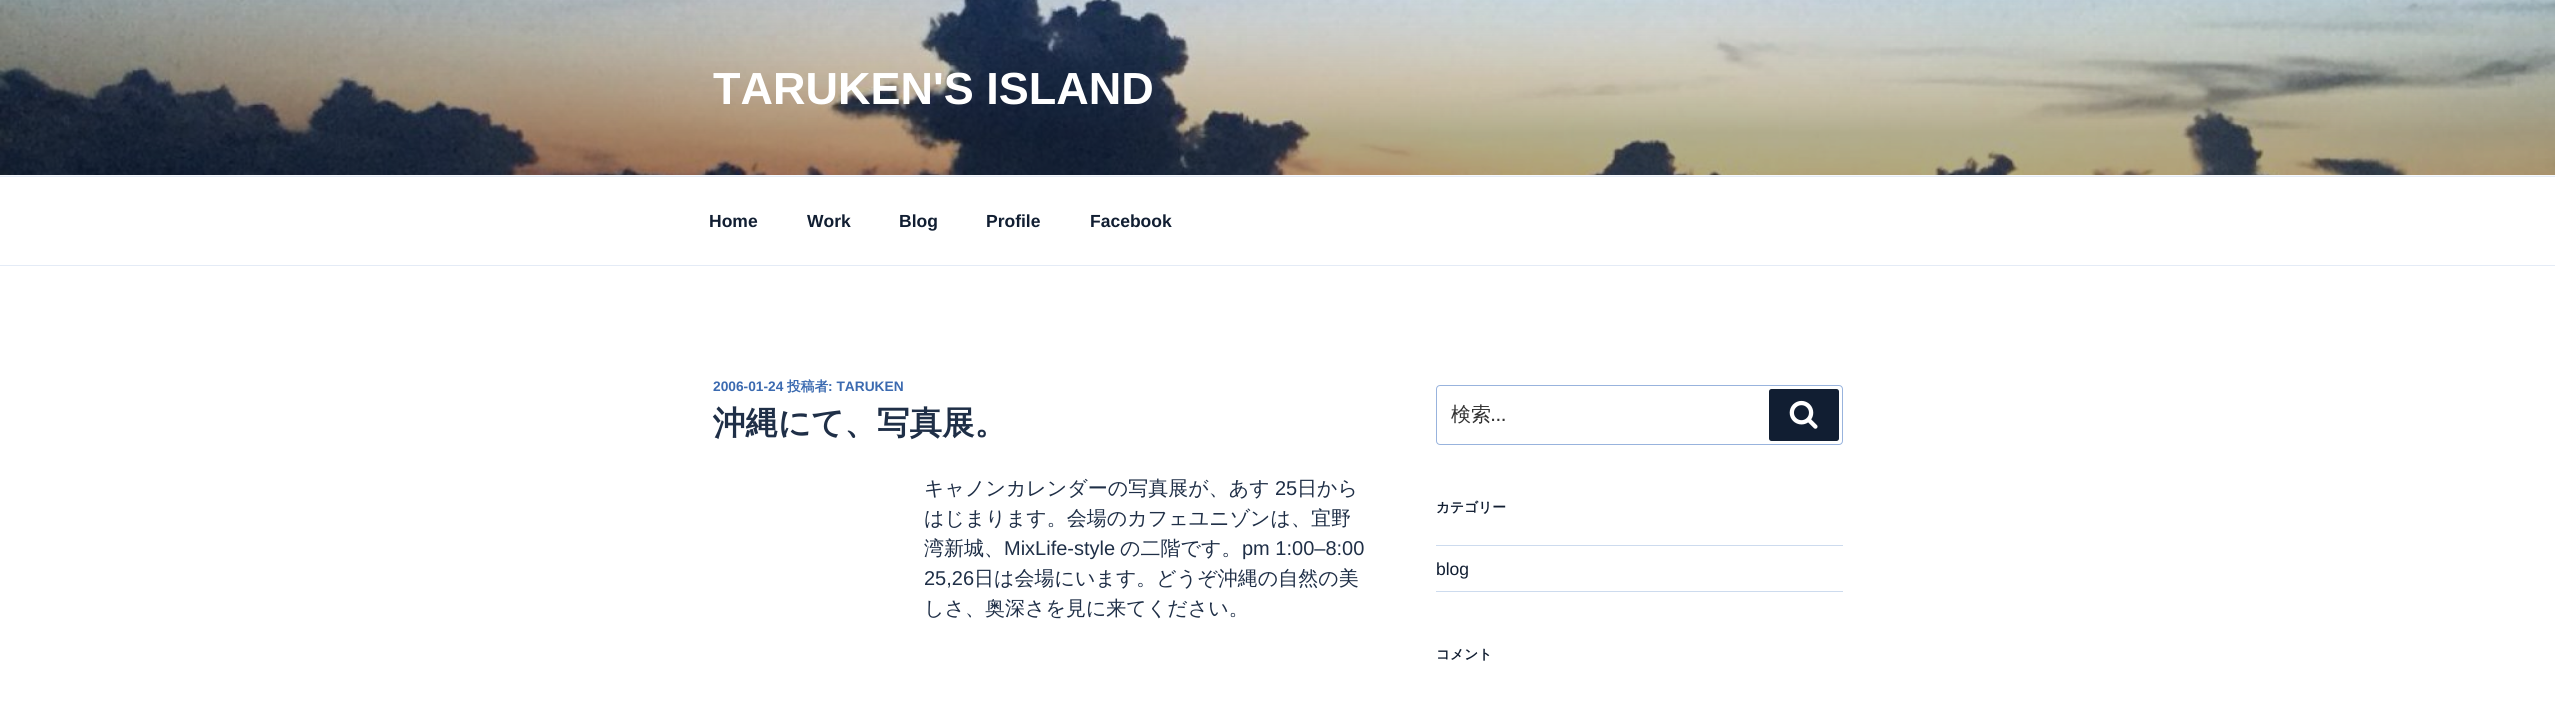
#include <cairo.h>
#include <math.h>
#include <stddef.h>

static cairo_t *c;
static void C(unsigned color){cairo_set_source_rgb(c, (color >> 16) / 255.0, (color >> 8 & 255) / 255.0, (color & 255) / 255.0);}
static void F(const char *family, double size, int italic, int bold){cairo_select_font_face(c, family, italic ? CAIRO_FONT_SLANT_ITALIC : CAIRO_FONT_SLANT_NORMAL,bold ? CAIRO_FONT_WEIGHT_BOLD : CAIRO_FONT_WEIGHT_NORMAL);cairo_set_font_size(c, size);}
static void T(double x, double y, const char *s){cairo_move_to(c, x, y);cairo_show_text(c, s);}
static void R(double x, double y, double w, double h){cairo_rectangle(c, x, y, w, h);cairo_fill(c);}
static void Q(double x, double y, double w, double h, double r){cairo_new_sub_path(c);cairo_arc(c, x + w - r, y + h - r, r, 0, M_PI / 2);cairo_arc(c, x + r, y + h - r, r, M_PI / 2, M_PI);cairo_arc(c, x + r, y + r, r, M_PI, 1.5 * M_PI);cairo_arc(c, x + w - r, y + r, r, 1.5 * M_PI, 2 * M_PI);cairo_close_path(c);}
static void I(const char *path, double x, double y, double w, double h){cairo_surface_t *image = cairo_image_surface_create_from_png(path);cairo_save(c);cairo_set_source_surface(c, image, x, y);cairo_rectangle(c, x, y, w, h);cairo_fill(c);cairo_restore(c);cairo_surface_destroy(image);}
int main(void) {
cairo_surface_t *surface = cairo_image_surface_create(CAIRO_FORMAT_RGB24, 2555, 705);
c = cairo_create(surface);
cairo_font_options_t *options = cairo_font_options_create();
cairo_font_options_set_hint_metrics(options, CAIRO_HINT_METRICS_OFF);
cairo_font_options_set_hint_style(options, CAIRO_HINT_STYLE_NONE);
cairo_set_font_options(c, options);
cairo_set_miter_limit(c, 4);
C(0xffffff);
cairo_paint(c);
C(0xf7f9fc);
R(0,175,2555,1);
I("1.png",0,0,2555,175);
F("Liberation Sans",45,0,1);
C(0xffffff);
T(713,104,"TARUKEN'S ISLAND");
C(0xe4ebf6);
R(0,176,2555,1);
R(0,265,2555,1);
F("Liberation Sans",17.5,0,1);
C(0x111e32);
T(709,227,"Home");
T(807,227,"Work");
T(899,227,"Blog");
T(986,227,"Profile");
T(1090,227,"Facebook");
F("Liberation Sans",13.75,0,1);
C(0x3b6ab0);
T(713,391,"2006-01-24");
F("WenQuanYi Zen Hei",13.75,0,1);
T(787,391,"投稿者");
F("Liberation Sans",13.75,0,1);
T(828,391,": TARUKEN");
F("WenQuanYi Zen Hei",32.5,0,1);
C(0x1f2f47);
T(713,434,"沖縄にて、写真展。");
F("WenQuanYi Zen Hei Medium",20,0,0);
T(924,495,"キャノンカレンダーの写真展が、あす");
F("Liberation Sans",20,0,0);
T(1275,495,"25");
F("WenQuanYi Zen Hei Medium",20,0,0);
T(1297,495,"日から");
T(924,525,"はじまります。会場のカフェユニゾンは、宜野");
T(924,555,"湾新城、");
F("Liberation Sans",20,0,0);
T(1004,555,"MixLife-style");
F("WenQuanYi Zen Hei Medium",20,0,0);
T(1120,555,"の二階です。");
F("Liberation Sans",20,0,0);
T(1242,555,"pm 1:00–8:00");
T(924,585,"25,26");
F("WenQuanYi Zen Hei Medium",20,0,0);
T(974,585,"日は会場にいます。どうぞ沖縄の自然の美");
T(924,615,"しさ、奥深さを見に来てください。");
Q(1436.5,385.5,406,59,3.5);
C(0x98b3dd);
cairo_set_line_width(c,1);
cairo_stroke(c);
C(0x333333);
T(1451,421,"検索");
F("Libre Franklin",20,0,0);
T(1491,421,"…");
C(0x111e32);
Q(1769,389,70,52,2.5);
cairo_fill(c);
I("2.png",1789,400,29,29);
F("WenQuanYi Zen Hei",13.75,0,1);
T(1436,512,"カテゴリー");
C(0xcddbee);
R(1436,545,407,1);
R(1436,591,407,1);
F("Liberation Sans",17.5,0,0);
C(0x111e32);
T(1436,575,"blog");
F("WenQuanYi Zen Hei",13.75,0,1);
T(1436,659,"コメント");
cairo_surface_write_to_png(surface, "o.png");
cairo_font_options_destroy(options);
cairo_destroy(c);
cairo_surface_destroy(surface);
return 0;
}
